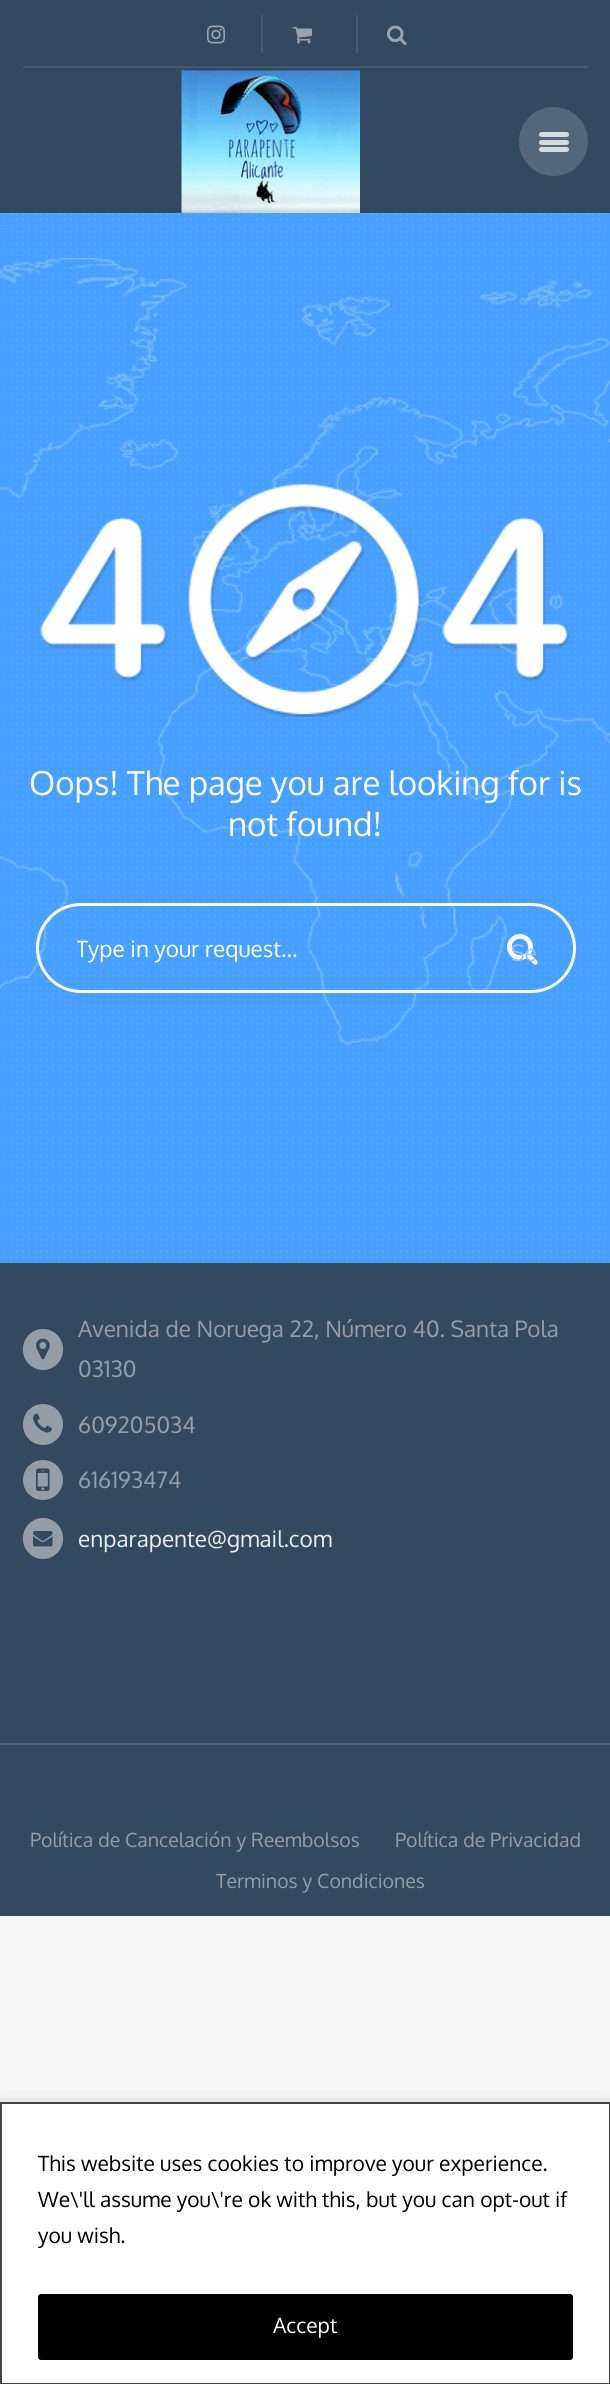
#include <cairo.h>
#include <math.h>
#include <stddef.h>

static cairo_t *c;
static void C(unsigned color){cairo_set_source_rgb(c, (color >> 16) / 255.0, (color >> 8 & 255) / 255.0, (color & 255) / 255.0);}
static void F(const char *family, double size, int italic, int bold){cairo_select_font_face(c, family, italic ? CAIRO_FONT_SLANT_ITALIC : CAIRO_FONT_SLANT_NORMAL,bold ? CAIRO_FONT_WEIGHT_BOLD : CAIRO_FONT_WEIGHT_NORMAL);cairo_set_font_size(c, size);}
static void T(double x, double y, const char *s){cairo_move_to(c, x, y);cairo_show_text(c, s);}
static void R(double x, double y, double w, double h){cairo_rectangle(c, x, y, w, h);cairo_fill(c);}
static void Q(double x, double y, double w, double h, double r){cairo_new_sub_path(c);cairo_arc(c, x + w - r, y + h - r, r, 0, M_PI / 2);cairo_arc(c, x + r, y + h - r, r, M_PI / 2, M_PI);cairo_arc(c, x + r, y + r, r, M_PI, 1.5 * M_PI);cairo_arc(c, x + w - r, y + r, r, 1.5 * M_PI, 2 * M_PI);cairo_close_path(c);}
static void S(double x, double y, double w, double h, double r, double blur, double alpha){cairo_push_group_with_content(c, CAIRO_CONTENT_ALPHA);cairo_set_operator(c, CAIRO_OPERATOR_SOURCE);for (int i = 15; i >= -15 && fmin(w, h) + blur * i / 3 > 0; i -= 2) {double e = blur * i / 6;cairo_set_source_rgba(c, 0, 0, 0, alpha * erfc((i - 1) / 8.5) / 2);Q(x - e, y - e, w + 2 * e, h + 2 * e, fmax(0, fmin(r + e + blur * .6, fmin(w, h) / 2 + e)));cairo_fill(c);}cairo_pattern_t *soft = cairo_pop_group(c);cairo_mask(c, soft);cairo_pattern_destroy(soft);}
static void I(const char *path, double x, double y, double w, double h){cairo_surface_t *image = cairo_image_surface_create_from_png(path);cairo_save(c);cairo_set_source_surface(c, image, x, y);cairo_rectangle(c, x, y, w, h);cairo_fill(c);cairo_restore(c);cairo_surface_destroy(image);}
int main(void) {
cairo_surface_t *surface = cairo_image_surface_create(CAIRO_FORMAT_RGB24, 610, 2384);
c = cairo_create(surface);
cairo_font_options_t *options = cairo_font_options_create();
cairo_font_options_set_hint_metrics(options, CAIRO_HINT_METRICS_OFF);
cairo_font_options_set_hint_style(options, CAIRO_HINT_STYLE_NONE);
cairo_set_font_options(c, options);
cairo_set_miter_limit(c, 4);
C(0xf6f6f6);
cairo_paint(c);
C(0x334960);
R(0,0,610,213);
I("1.png",207,25,18,19);
C(0x475b70);
R(261,15,2,38);
I("2.png",292,27,20,17);
R(356,15,2,38);
I("3.png",387,25,20,20);
R(23,66,565,2);
I("4.png",181,70,179,143);
C(0x546679);
cairo_arc(c,553.5,141.5,34.5,0,2 * M_PI);
cairo_fill(c);
C(0xd6dbdf);
Q(539,140,30,5,2.5);
cairo_fill(c);
Q(539,132,30,5,2.5);
cairo_fill(c);
Q(539,147,30,5,2.5);
cairo_fill(c);
C(0x47a0ff);
R(0,213,610,1050);
I("5.png",4,213,602,1046);
I("7.png",40,484,530,233);
I("6.png",0,258,610,788);
F("Oxygen",33,0,0);
C(0xffffff);
T(29,795,"Oops! The page you are looking for is");
T(228,836,"not found!");
I("8.png",507,934,31,31);
Q(37.5,904.5,537,87,43.5);
cairo_set_line_width(c,3);
cairo_stroke(c);
cairo_save(c);
cairo_rectangle(c,77,935,400,28);
cairo_clip(c);
F("Oxygen",22.5,0,0);
T(76,957,"Type in your request...");
cairo_restore(c);
F("Oxygen",22.5,0,0);
C(0x8fc5ff);
T(511,961,"Se");
C(0x334960);
R(0,1263,610,653);
C(0x959da7);
Q(23,1329,40,41,20);
cairo_fill(c);
I("9.png",36,1338,14,22);
T(78,1337,"Avenida de Noruega 22, Número 40. Santa Pola");
T(78,1377,"03130");
Q(23,1404,40,41,20);
cairo_fill(c);
I("10.png",33,1413,19,20);
T(78,1433,"609205034");
cairo_new_path(c);
cairo_arc(c,43,1480,20,0,2 * M_PI);
cairo_fill(c);
I("11.png",36,1468,14,23);
T(78,1488,"616193474");
Q(23,1518,40,41,20);
cairo_fill(c);
I("12.png",33,1531,20,16);
C(0xebedef);
T(78,1547,"enparapente@gmail.com");
C(0x506275);
R(0,1743,610,2);
F("Oxygen",19.5,0,0);
C(0x959da7);
T(30,1847,"Política de Cancelación y Reembolsos");
T(395,1847,"Política de Privacidad");
T(216,1888,"Terminos y Condiciones");
C(0xacabab);
S(0,2100,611,284,0,7.5,.3);
C(0xffffff);
cairo_rectangle(c,1,2103,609,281);
cairo_fill_preserve(c);
C(0x444444);
cairo_set_line_width(c,2);
cairo_stroke(c);
F("Oxygen",21,0,0);
C(0x000000);
T(38,2171,"This website uses cookies to improve your experience.");
T(38,2207,"We\\'ll assume you\\'re ok with this, but you can opt-out if");
T(38,2243,"you wish.");
Q(39.5,2295.5,532,63,1.5);
cairo_fill_preserve(c);
cairo_set_line_width(c,3);
cairo_stroke(c);
C(0xffffff);
T(273,2333,"Accept");
cairo_surface_write_to_png(surface, "o.png");
cairo_font_options_destroy(options);
cairo_destroy(c);
cairo_surface_destroy(surface);
return 0;
}
